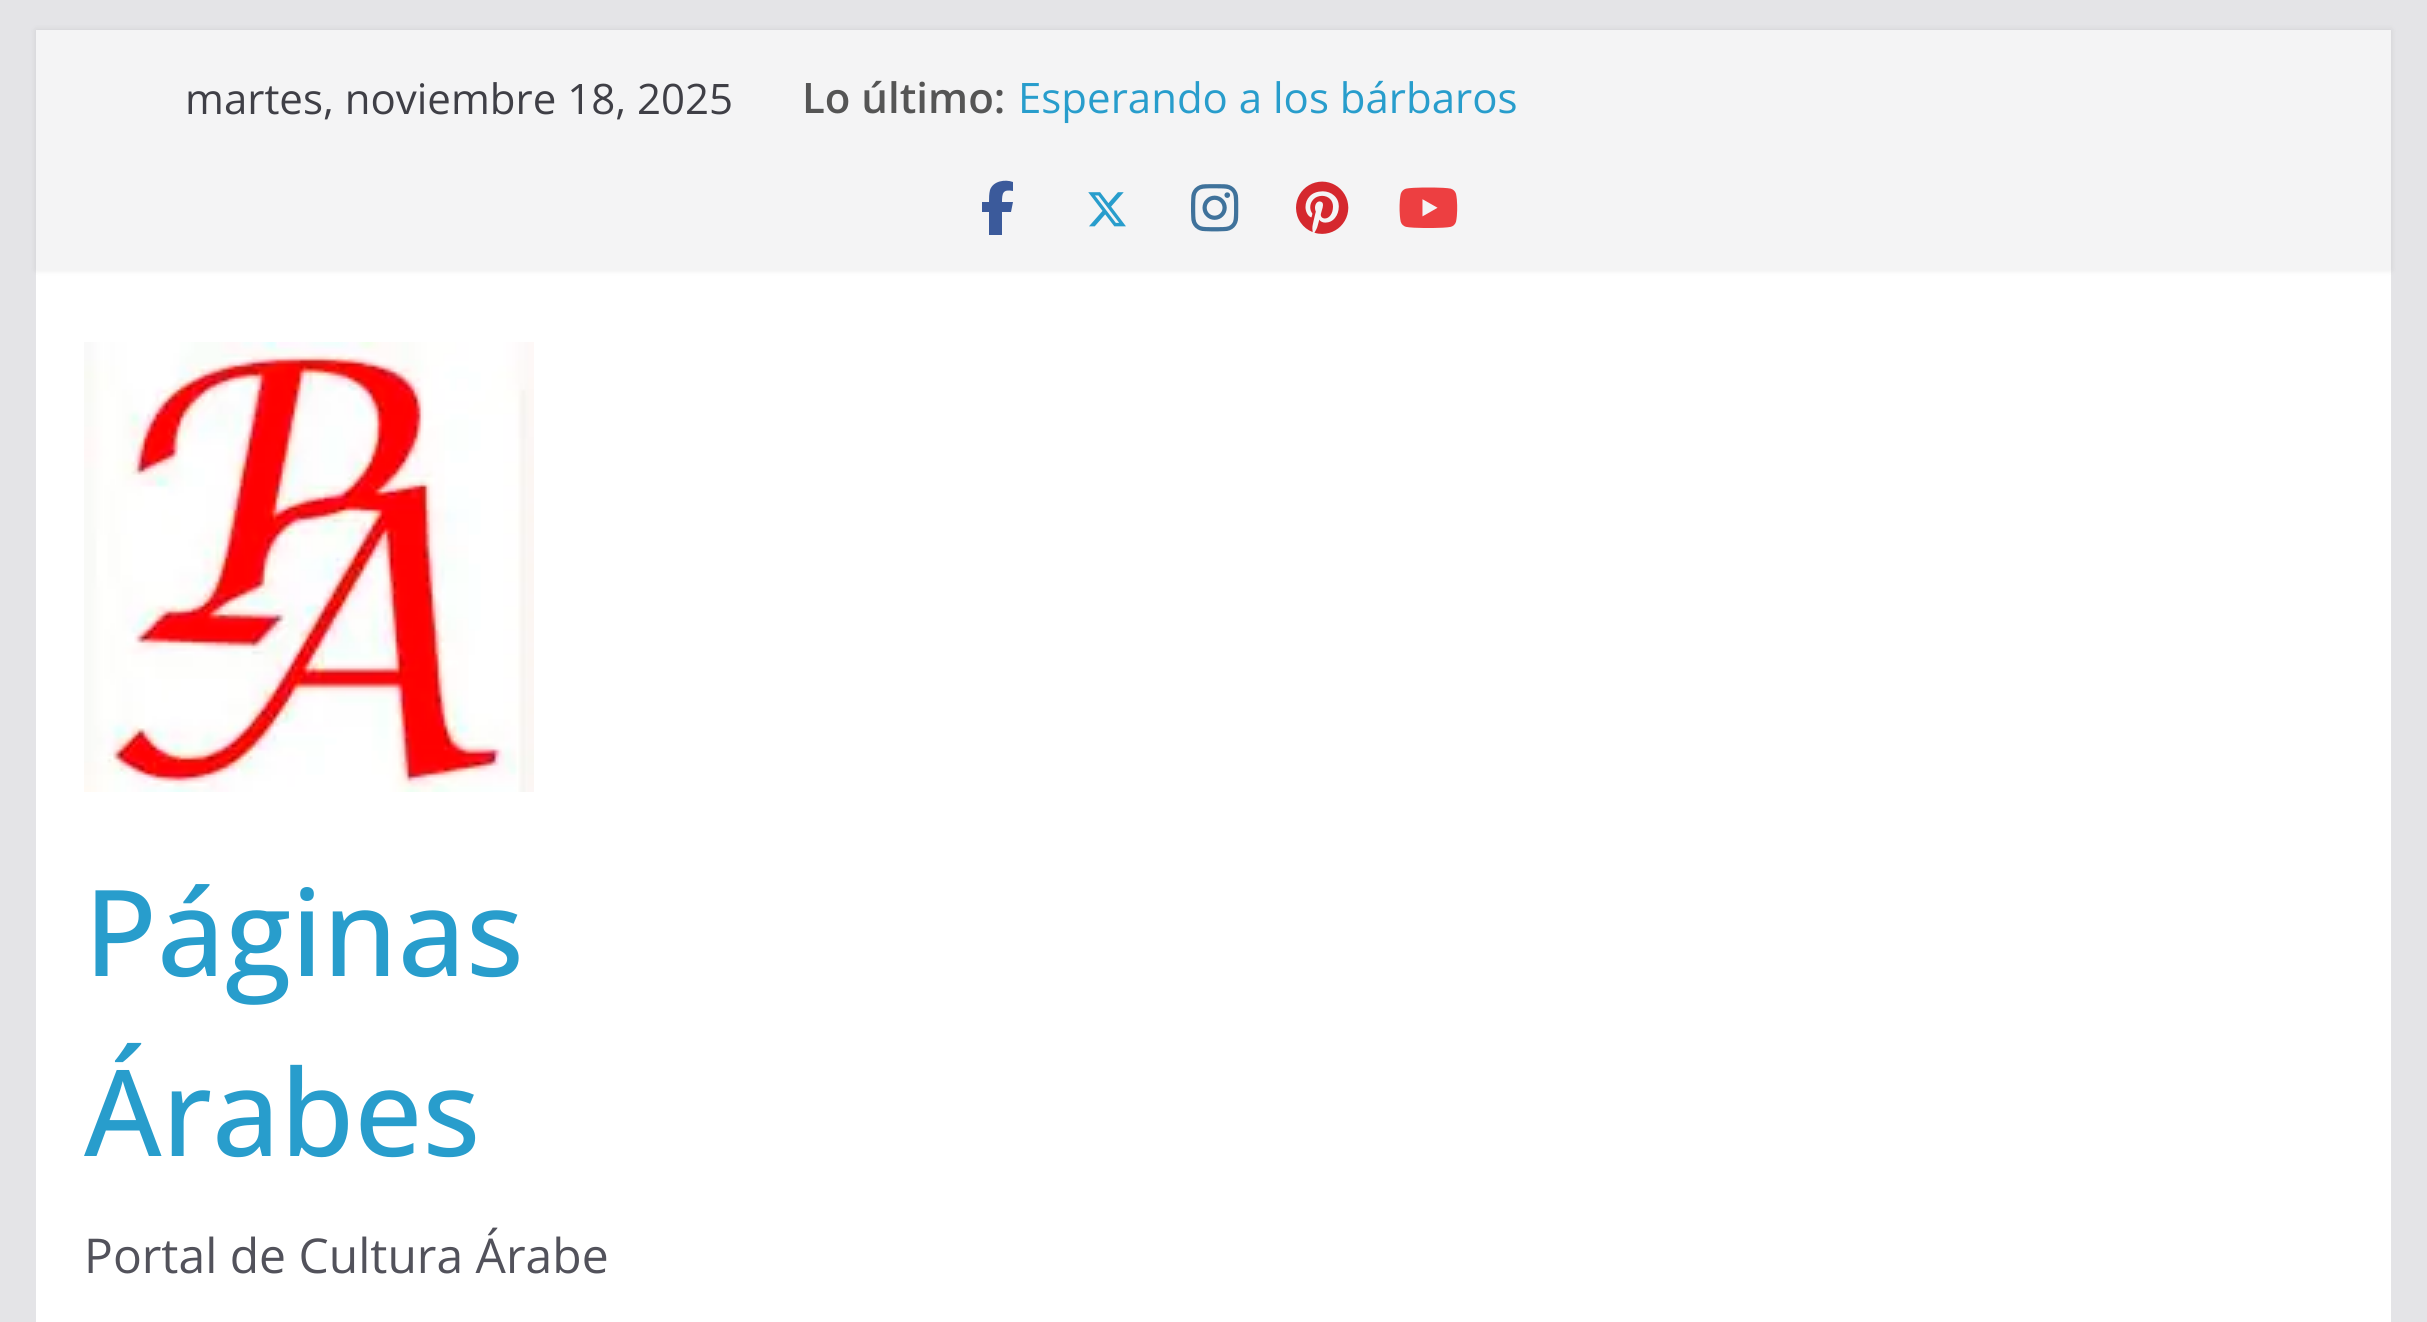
#include <cairo.h>
#include <math.h>
#include <stddef.h>

static cairo_t *c;
static void C(unsigned color){cairo_set_source_rgb(c, (color >> 16) / 255.0, (color >> 8 & 255) / 255.0, (color & 255) / 255.0);}
static void F(const char *family, double size, int italic, int bold){cairo_select_font_face(c, family, italic ? CAIRO_FONT_SLANT_ITALIC : CAIRO_FONT_SLANT_NORMAL,bold ? CAIRO_FONT_WEIGHT_BOLD : CAIRO_FONT_WEIGHT_NORMAL);cairo_set_font_size(c, size);}
static void T(double x, double y, const char *s){cairo_move_to(c, x, y);cairo_show_text(c, s);}
static void R(double x, double y, double w, double h){cairo_rectangle(c, x, y, w, h);cairo_fill(c);}
static void Q(double x, double y, double w, double h, double r){cairo_new_sub_path(c);cairo_arc(c, x + w - r, y + h - r, r, 0, M_PI / 2);cairo_arc(c, x + r, y + h - r, r, M_PI / 2, M_PI);cairo_arc(c, x + r, y + r, r, M_PI, 1.5 * M_PI);cairo_arc(c, x + w - r, y + r, r, 1.5 * M_PI, 2 * M_PI);cairo_close_path(c);}
static void S(double x, double y, double w, double h, double r, double blur, double alpha){cairo_push_group_with_content(c, CAIRO_CONTENT_ALPHA);cairo_set_operator(c, CAIRO_OPERATOR_SOURCE);for (int i = 15; i >= -15 && fmin(w, h) + blur * i / 3 > 0; i -= 2) {double e = blur * i / 6;cairo_set_source_rgba(c, 0, 0, 0, alpha * erfc((i - 1) / 8.5) / 2);Q(x - e, y - e, w + 2 * e, h + 2 * e, fmax(0, fmin(r + e + blur * .6, fmin(w, h) / 2 + e)));cairo_fill(c);}cairo_pattern_t *soft = cairo_pop_group(c);cairo_mask(c, soft);cairo_pattern_destroy(soft);}
static void I(const char *path, double x, double y, double w, double h){cairo_surface_t *image = cairo_image_surface_create_from_png(path);cairo_save(c);cairo_set_source_surface(c, image, x, y);cairo_rectangle(c, x, y, w, h);cairo_fill(c);cairo_restore(c);cairo_surface_destroy(image);}
int main(void) {
cairo_surface_t *surface = cairo_image_surface_create(CAIRO_FORMAT_RGB24, 2427, 1322);
c = cairo_create(surface);
cairo_font_options_t *options = cairo_font_options_create();
cairo_font_options_set_hint_metrics(options, CAIRO_HINT_METRICS_OFF);
cairo_font_options_set_hint_style(options, CAIRO_HINT_STYLE_NONE);
cairo_set_font_options(c, options);
cairo_set_miter_limit(c, 4);
C(0xe4e4e7);
cairo_paint(c);
C(0xffffff);
R(36,270,2355,1052);
C(0x000000);
S(36,30,2355,240,0,3,.1);
C(0xf4f4f5);
R(36,30,2355,240);
F("Open Sans",42,0,0);
C(0x3f3f46);
T(185,114,"martes, noviembre 18, 2025");
F("Open Sans SemiBold",42,0,0);
C(0x555555);
T(802,113,"Lo último:");
F("Open Sans",42,0,0);
C(0x289dcc);
T(1018,113,"Esperando a los bárbaros");
C(0x3b5a9b);
cairo_new_path(c);
cairo_move_to(c,989,212);
cairo_line_to(c,989,235);
cairo_line_to(c,989,212);
cairo_line_to(c,989,235);
cairo_line_to(c,1002,235);
cairo_line_to(c,1002,212);
cairo_line_to(c,1011,212);
cairo_line_to(c,1013,202);
cairo_line_to(c,1002,202);
cairo_curve_to(c,1002,193,1003,189,1013,191);
cairo_line_to(c,1013,182);
cairo_curve_to(c,1005,179,993,181,990,190);
cairo_curve_to(c,989,194,989,198,989,202);
cairo_line_to(c,982,202);
cairo_line_to(c,982,212);
cairo_close_path(c);
cairo_fill(c);
I("1.png",1088,192,38,35);
I("2.png",1191,184,48,48);
I("3.png",1296,181,53,53);
I("4.png",1399,187,59,41);
I("5.png",84,342,450,450);
F("Open Sans Medium",120,0,0);
C(0x289dcc);
T(84,976,"Páginas");
T(84,1156,"Árabes");
F("Open Sans",48,0,0);
C(0x52525b);
T(84,1273,"Portal de Cultura Árabe");
cairo_surface_write_to_png(surface, "o.png");
cairo_font_options_destroy(options);
cairo_destroy(c);
cairo_surface_destroy(surface);
return 0;
}
